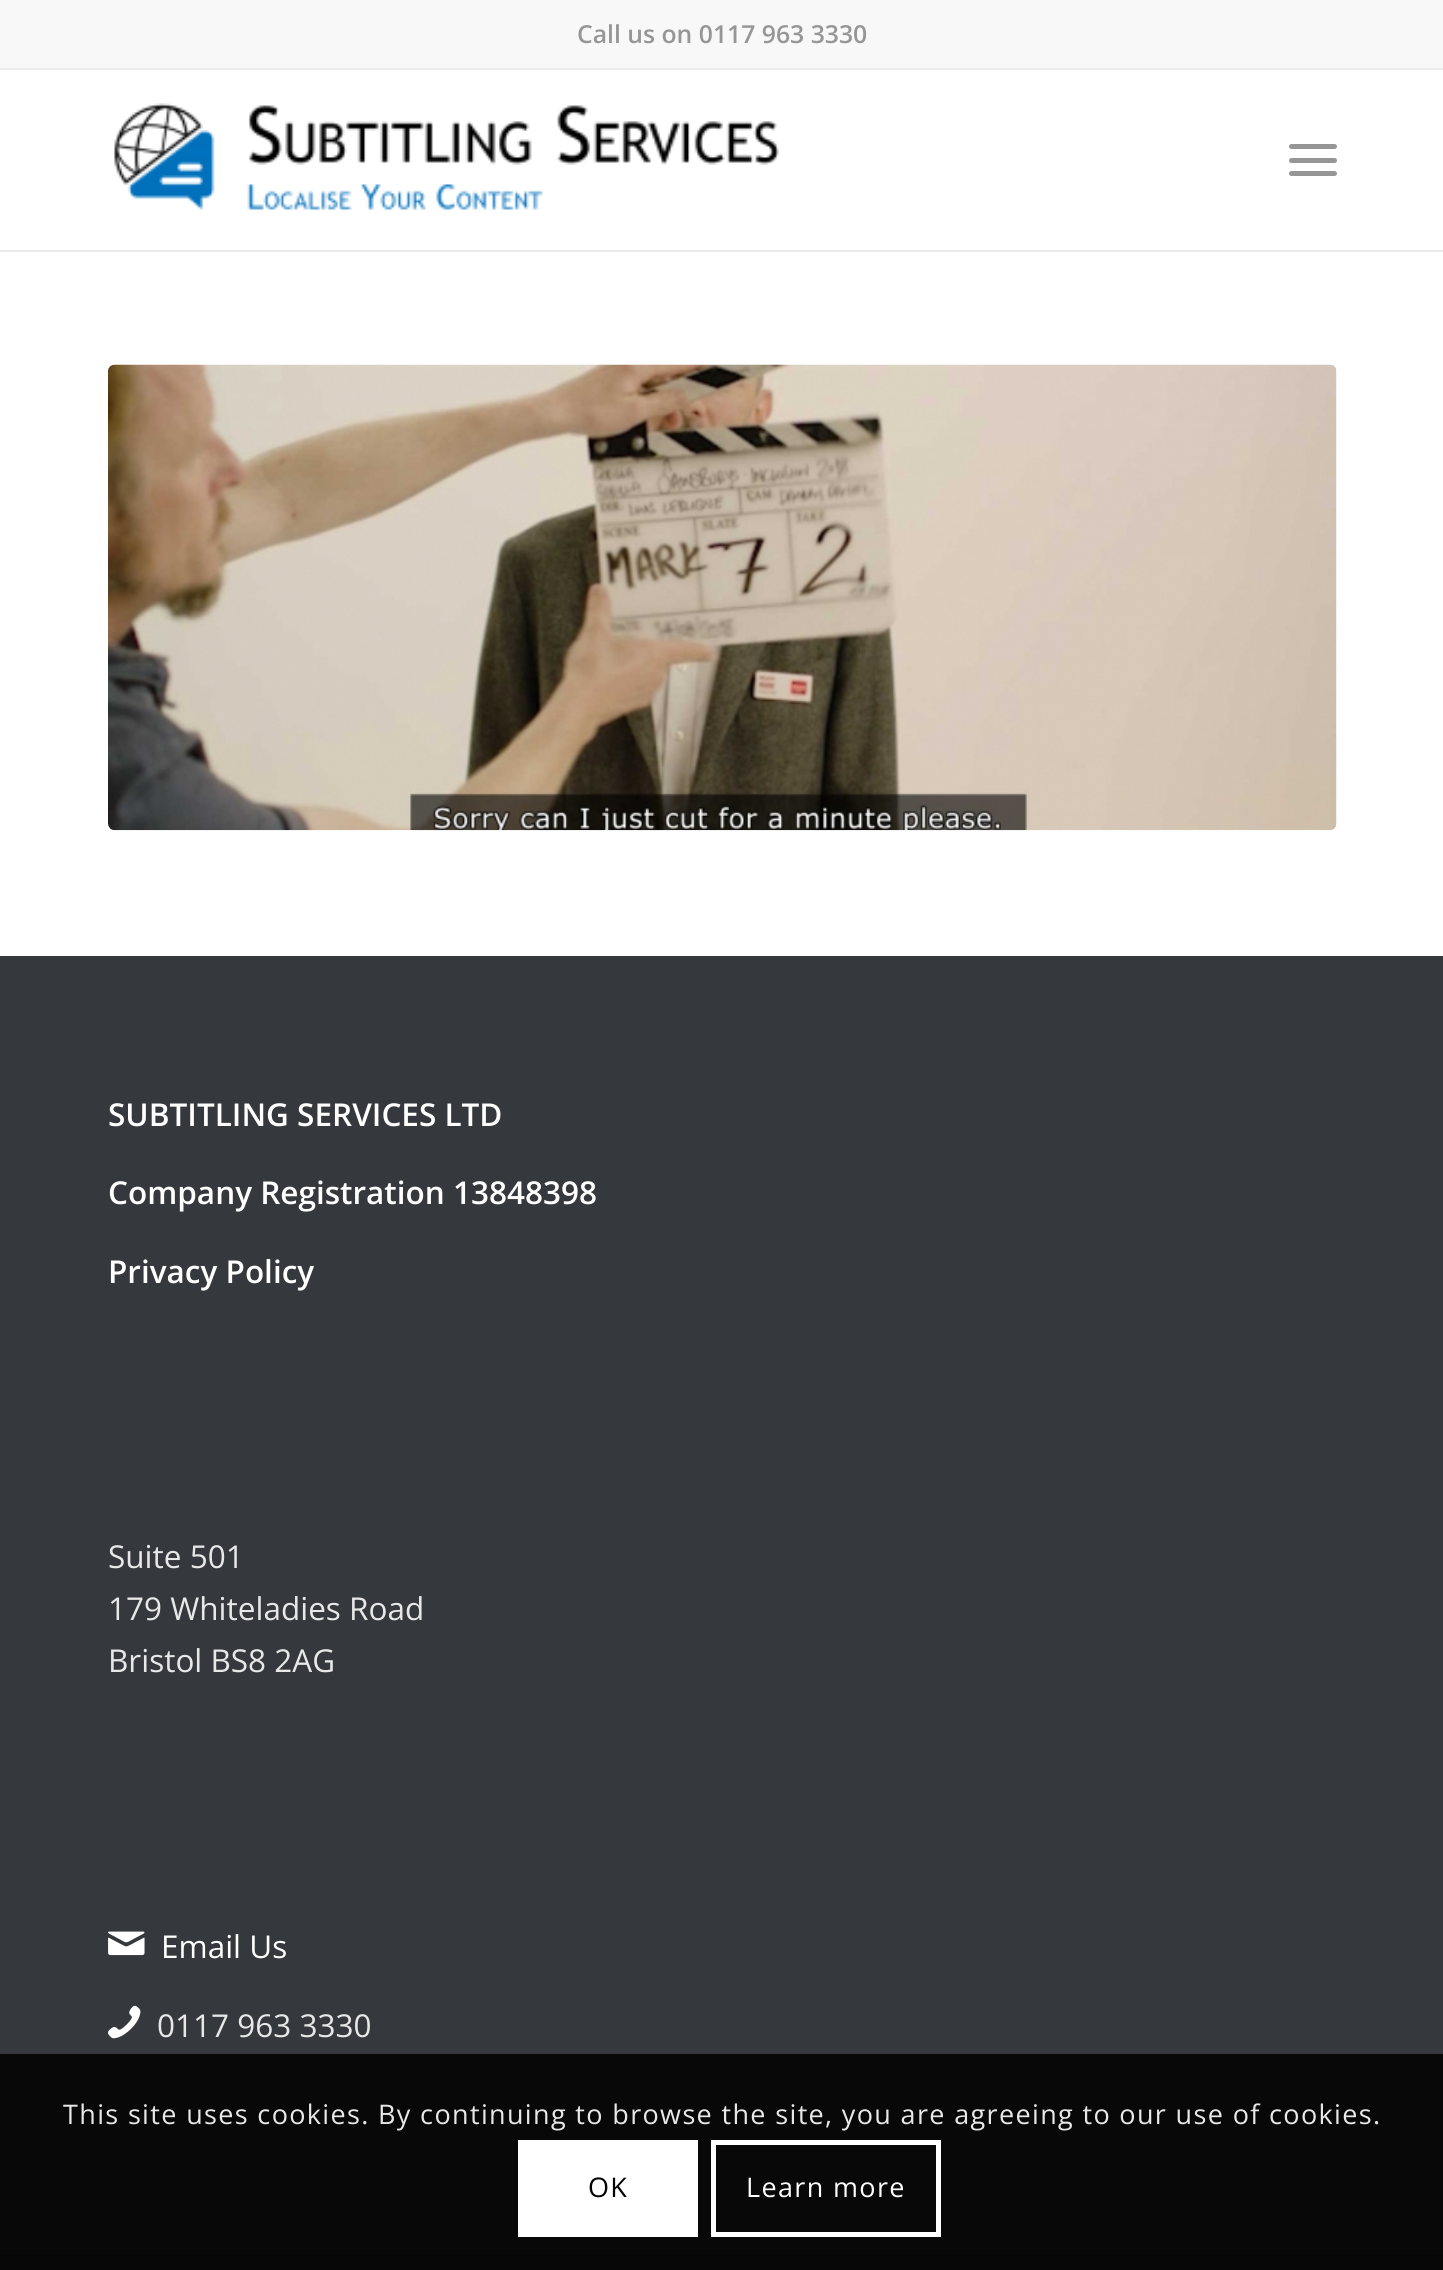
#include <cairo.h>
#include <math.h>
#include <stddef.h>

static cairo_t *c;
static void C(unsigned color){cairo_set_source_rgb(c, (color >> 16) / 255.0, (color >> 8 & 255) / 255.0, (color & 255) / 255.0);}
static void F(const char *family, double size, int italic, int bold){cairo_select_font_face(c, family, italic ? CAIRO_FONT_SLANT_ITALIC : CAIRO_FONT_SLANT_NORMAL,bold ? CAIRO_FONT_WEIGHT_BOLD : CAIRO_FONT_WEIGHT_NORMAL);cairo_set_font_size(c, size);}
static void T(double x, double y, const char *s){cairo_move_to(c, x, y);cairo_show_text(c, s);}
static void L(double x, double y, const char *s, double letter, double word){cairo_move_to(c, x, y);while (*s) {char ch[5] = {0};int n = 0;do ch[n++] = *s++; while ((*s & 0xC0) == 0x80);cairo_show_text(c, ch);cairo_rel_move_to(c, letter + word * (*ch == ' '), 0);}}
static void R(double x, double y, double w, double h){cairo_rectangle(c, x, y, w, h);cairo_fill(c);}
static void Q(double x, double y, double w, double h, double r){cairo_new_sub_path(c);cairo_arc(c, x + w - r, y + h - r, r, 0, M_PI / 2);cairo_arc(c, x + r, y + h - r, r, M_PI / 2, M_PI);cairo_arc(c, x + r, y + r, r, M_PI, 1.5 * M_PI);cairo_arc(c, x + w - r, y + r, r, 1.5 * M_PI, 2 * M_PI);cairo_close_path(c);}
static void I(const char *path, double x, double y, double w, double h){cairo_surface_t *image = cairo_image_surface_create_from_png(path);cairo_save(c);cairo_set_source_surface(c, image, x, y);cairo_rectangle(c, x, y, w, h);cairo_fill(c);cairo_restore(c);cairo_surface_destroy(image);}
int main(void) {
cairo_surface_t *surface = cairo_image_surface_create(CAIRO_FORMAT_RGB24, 1443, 2270);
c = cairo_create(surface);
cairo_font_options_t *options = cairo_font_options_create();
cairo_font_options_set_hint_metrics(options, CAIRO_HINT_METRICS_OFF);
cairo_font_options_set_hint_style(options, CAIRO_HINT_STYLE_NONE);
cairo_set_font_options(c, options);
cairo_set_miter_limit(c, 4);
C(0xffffff);
cairo_paint(c);
C(0xf8f8f8);
R(0,0,1443,68);
C(0xebebeb);
R(0,68,1443,2);
F("Open Sans SemiBold",24.75,0,0);
C(0x969696);
T(577,43,"Call us on 0117 963 3330");
C(0xebebeb);
R(0,250,1443,2);
I("1.png",114,103,665,107);
C(0x969696);
Q(1289,158,48,5,2.5);
cairo_fill(c);
Q(1289,144,48,5,2.5);
cairo_fill(c);
Q(1289,171,48,5,2.5);
cairo_fill(c);
I("2.png",108,364,1229,467);
C(0x35383c);
R(0,956,1443,1098);
C(0x080809);
R(0,2054,1443,201);
F("Open Sans SemiBold",31.5,0,0);
C(0xffffff);
T(108,1126,"SUBTITLING SERVICES LTD");
T(108,1204,"Company Registration 13848398");
T(108,1283,"Privacy Policy");
F("Open Sans",31.5,0,0);
C(0xe8e8e8);
T(108,1568,"Suite 501");
T(108,1620,"179 Whiteladies Road");
T(108,1672,"Bristol BS8 2AG");
I("3.png",108,1931,37,25);
C(0xffffff);
T(161,1958,"Email Us");
I("4.png",108,2005,33,34);
C(0xe8e8e8);
T(157,2037,"0117 963 3330");
C(0x060607);
R(0,2255,1443,15);
F("Open Sans",27,0,0);
C(0xe8e8e8);
L(63,2124,"This site uses cookies. By continuing to browse the site, you are agreeing to our use of cookies.",1.35,0);
C(0xffffff);
R(518,2140,180,97);
C(0x000000);
L(588,2197,"OK",1.35,0);
cairo_rectangle(c,713.5,2142.5,225,92);
C(0xffffff);
cairo_set_line_width(c,5);
cairo_stroke(c);
L(746,2197,"Learn more",1.35,0);
cairo_surface_write_to_png(surface, "o.png");
cairo_font_options_destroy(options);
cairo_destroy(c);
cairo_surface_destroy(surface);
return 0;
}
